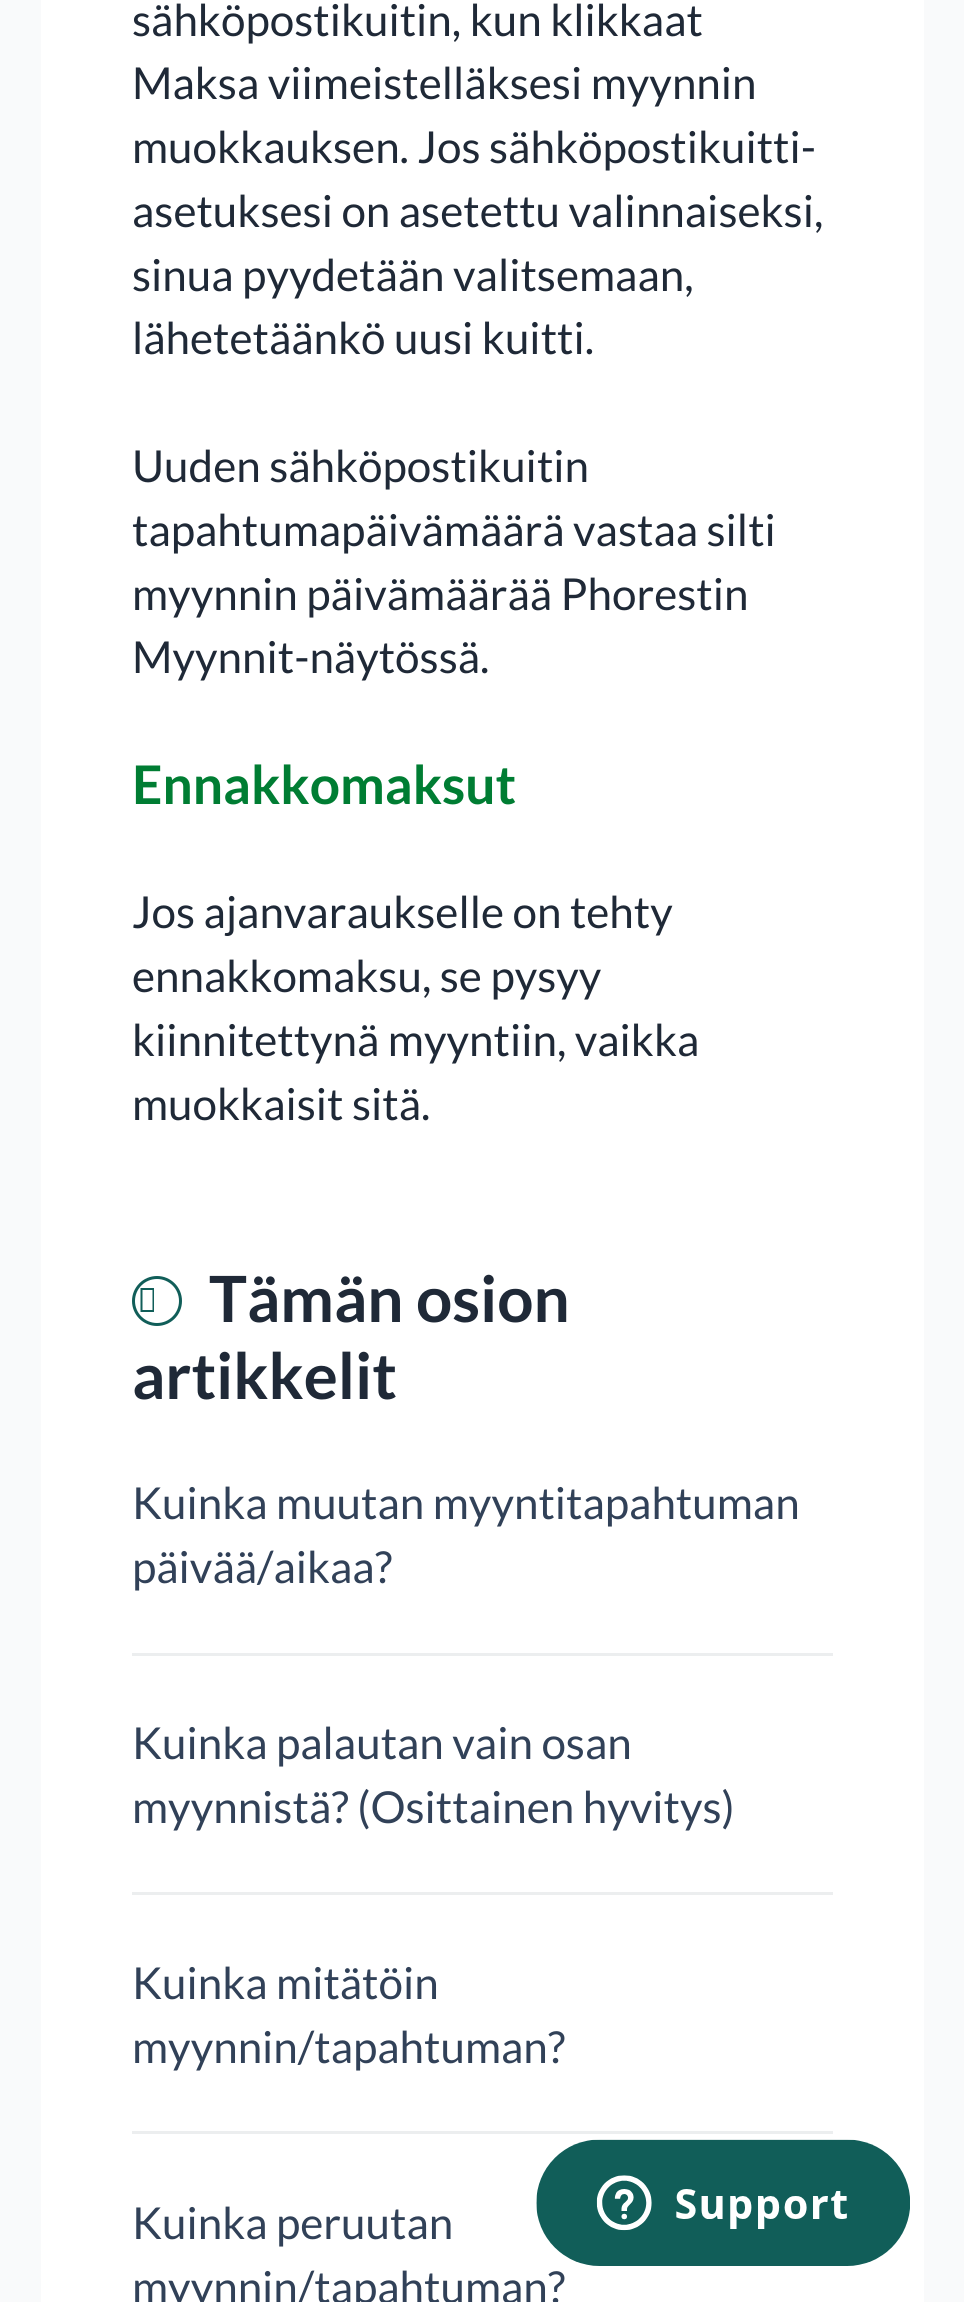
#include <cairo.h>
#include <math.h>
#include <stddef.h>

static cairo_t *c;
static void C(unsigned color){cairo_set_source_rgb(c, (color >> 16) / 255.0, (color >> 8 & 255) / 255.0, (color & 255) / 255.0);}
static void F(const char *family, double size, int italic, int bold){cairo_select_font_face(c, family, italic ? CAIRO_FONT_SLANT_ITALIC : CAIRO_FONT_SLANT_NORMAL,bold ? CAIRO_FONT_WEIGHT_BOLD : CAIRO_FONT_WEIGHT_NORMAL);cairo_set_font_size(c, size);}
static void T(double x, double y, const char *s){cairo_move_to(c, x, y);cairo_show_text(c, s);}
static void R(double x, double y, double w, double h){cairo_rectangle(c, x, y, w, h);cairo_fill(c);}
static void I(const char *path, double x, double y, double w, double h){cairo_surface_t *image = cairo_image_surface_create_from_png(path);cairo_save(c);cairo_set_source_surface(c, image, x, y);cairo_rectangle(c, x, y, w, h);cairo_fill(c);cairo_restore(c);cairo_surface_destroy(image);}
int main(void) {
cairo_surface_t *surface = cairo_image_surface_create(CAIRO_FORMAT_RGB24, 964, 2302);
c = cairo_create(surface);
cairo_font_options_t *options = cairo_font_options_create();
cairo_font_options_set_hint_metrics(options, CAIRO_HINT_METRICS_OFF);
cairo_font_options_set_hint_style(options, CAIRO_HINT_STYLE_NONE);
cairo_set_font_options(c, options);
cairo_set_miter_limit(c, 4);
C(0xf9fafb);
cairo_paint(c);
C(0xffffff);
R(41,0,883,2302);
F("Lato",44,0,0);
C(0x1f2937);
T(132,36,"sähköpostikuitin, kun klikkaat");
T(132,99,"Maksa viimeistelläksesi myynnin");
T(132,163,"muokkauksen. Jos sähköpostikuitti-");
T(132,227,"asetuksesi on asetettu valinnaiseksi,");
T(132,291,"sinua pyydetään valitsemaan,");
T(132,354,"lähetetäänkö uusi kuitti.");
T(132,482,"Uuden sähköpostikuitin");
T(132,546,"tapahtumapäivämäärä vastaa silti");
T(132,610,"myynnin päivämäärää Phorestin");
T(132,673,"Myynnit-näytössä.");
F("Lato",53.25,0,1);
C(0x007d33);
T(132,804,"Ennakkomaksut");
F("Lato",44,0,0);
C(0x1f2937);
T(132,928,"Jos ajanvaraukselle on tehty");
T(132,992,"ennakkomaksu, se pysyy");
T(132,1056,"kiinnitettynä myyntiin, vaikka");
T(132,1120,"muokkaisit sitä.");
cairo_new_path(c);
cairo_arc(c,157,1301,23.5,0,2 * M_PI);
C(0x115e59);
cairo_set_line_width(c,3);
cairo_stroke(c);
cairo_new_path(c);
cairo_move_to(c,140.5,1312);
cairo_line_to(c,140.5,1288);
cairo_line_to(c,154,1288);
cairo_line_to(c,154,1312);
cairo_close_path(c);
cairo_move_to(c,142.5,1310);
cairo_line_to(c,152.5,1310);
cairo_line_to(c,152.5,1290);
cairo_line_to(c,142.5,1290);
cairo_close_path(c);
cairo_fill(c);
F("Lato",63.75,0,1);
C(0x1f2937);
T(209,1322,"Tämän osion");
T(132,1399,"artikkelit");
C(0xeceeef);
R(132,1653,701,3);
F("Lato",44,0,0);
C(0x314158);
T(132,1519,"Kuinka muutan myyntitapahtuman");
T(132,1583,"päivää/aikaa?");
C(0xeceeef);
R(132,1892,701,3);
C(0x314158);
T(132,1759,"Kuinka palautan vain osan");
T(132,1823,"myynnistä? (Osittainen hyvitys)");
C(0xeceeef);
R(132,2131,701,3);
C(0x314158);
T(132,1999,"Kuinka mitätöin");
T(132,2063,"myynnin/tapahtuman?");
T(132,2239,"Kuinka peruutan");
T(132,2303,"myynnin/tapahtuman?");
I("1.png",536,2139,374,127);
cairo_surface_write_to_png(surface, "o.png");
cairo_font_options_destroy(options);
cairo_destroy(c);
cairo_surface_destroy(surface);
return 0;
}
